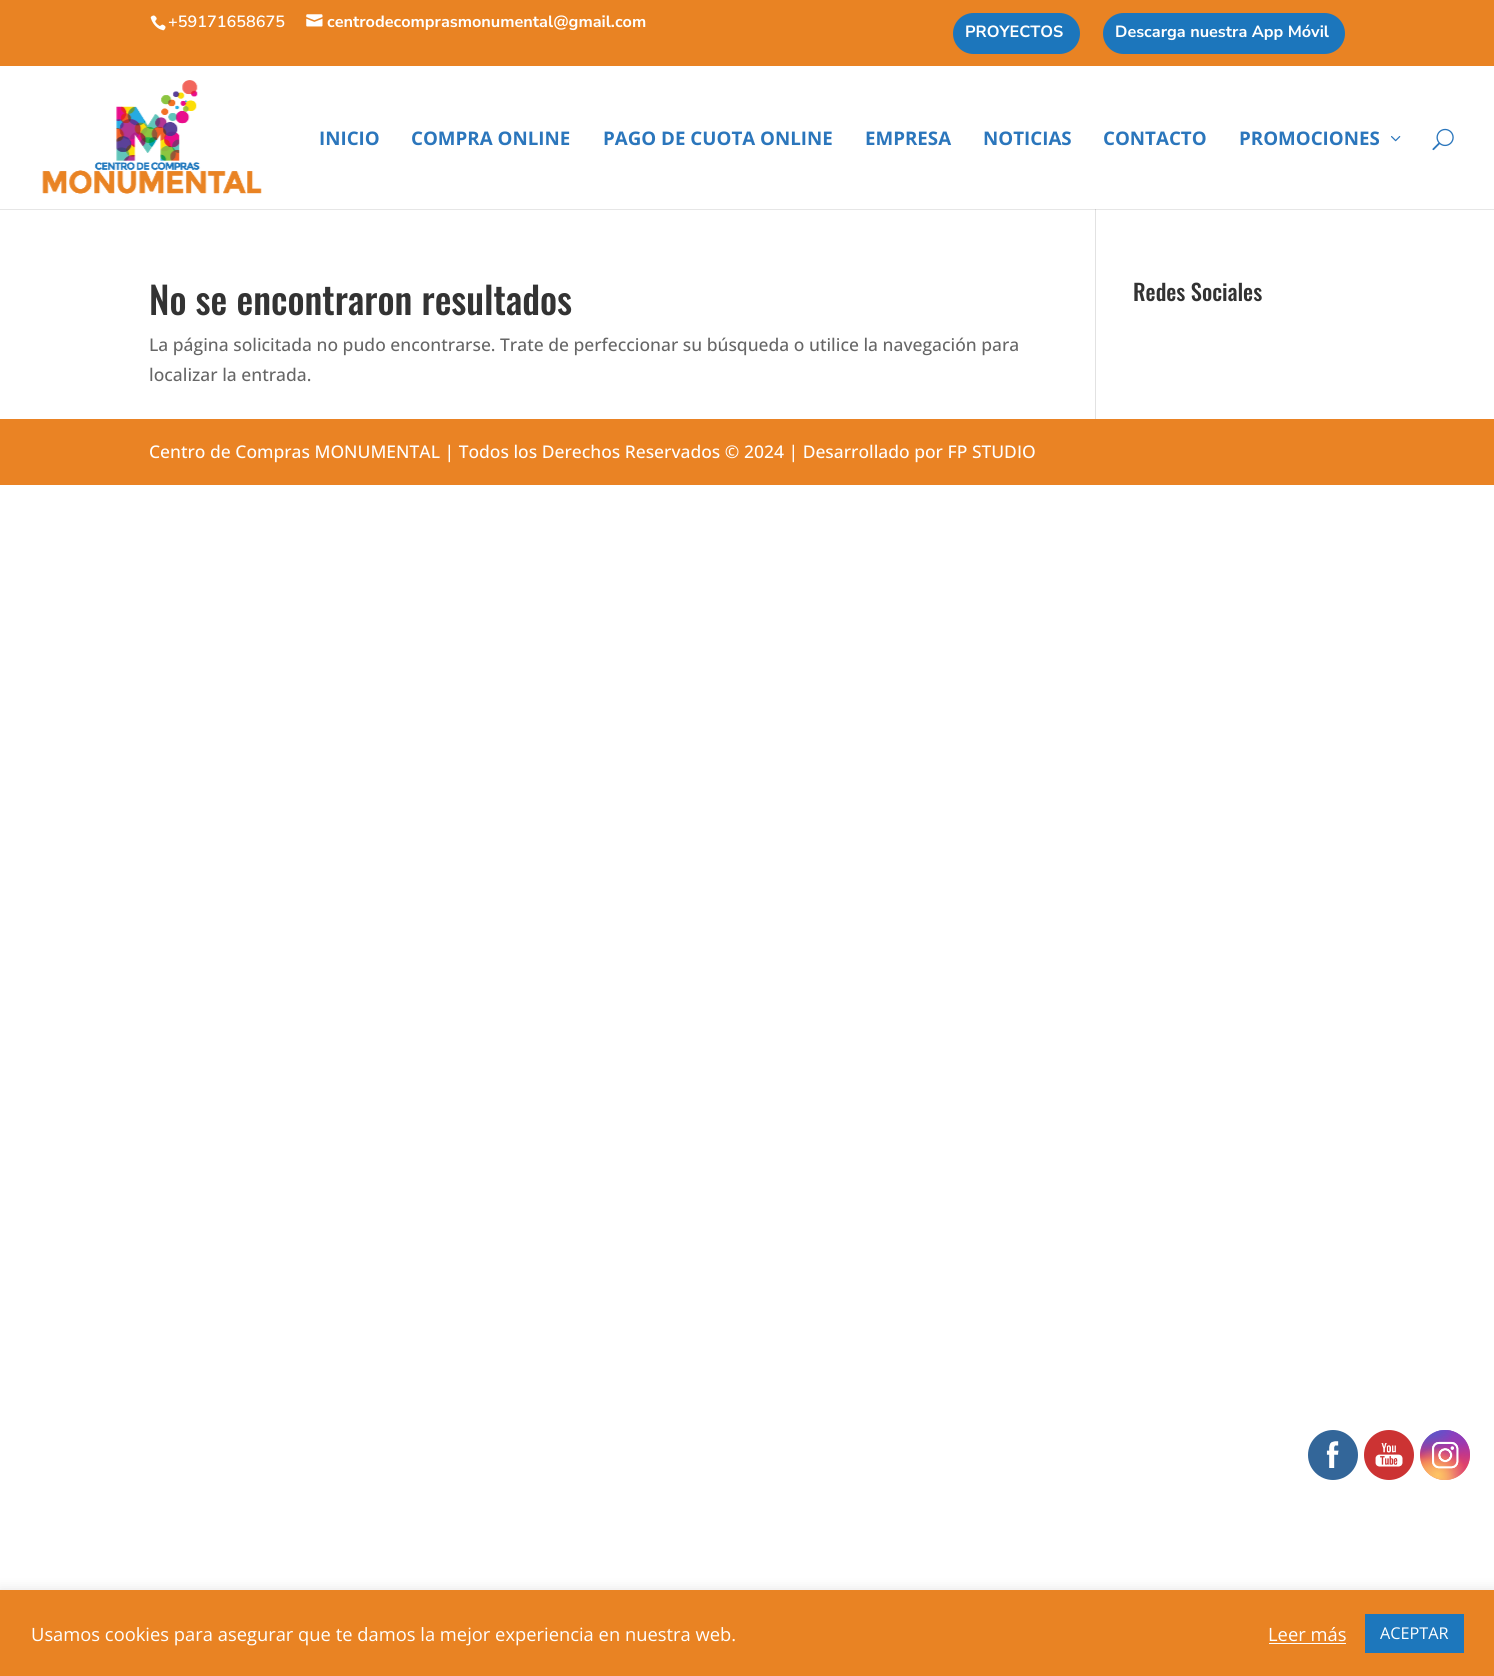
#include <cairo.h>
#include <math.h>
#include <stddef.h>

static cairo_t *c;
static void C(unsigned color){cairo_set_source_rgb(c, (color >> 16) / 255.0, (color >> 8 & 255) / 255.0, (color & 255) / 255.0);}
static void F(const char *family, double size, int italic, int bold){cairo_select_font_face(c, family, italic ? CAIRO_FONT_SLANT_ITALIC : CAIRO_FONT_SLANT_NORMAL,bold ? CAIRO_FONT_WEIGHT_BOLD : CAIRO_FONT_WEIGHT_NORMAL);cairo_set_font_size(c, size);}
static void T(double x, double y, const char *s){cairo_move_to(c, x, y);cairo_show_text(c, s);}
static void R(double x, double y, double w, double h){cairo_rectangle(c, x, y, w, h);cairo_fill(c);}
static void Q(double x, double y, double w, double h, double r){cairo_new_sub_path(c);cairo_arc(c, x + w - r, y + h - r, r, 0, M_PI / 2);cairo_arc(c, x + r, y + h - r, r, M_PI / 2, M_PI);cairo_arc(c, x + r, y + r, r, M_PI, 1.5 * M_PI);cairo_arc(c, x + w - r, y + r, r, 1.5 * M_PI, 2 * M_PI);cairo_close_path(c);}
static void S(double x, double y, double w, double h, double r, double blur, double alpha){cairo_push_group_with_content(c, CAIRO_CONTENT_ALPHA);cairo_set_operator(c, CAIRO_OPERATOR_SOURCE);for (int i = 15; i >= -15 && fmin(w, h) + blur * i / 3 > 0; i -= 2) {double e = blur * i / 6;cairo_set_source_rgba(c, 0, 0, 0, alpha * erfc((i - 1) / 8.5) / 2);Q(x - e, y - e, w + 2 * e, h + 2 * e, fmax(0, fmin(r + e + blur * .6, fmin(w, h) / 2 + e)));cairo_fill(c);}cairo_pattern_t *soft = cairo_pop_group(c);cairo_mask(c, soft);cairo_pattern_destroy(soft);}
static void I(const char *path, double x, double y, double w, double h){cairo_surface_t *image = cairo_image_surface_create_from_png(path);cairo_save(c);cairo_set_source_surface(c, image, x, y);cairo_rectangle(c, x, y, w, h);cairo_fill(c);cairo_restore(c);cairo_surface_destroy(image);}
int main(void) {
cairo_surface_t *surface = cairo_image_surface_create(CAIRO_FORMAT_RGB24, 1494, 1676);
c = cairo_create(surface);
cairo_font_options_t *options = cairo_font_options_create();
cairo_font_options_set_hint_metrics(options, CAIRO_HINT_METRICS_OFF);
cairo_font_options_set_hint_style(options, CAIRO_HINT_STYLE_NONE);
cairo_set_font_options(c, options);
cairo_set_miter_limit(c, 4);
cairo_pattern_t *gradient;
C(0xffffff);
cairo_paint(c);
C(0xe6e6e6);
R(0,209,1494,1);
C(0xe98323);
R(0,0,1494,66);
I("1.png",150,15,16,16);
F("Nunito Sans ExtraLight",16.25,0,0);
C(0xffffff);
T(168,27,"+59171658675");
I("2.png",306,14,17,13);
F("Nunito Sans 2 ExtraLight",16.25,0,0);
T(327,27,"centrodecomprasmonumental@gmail.com");
C(0x1c76bc);
Q(953,13,127,41,20.5);
cairo_fill(c);
C(0xffffff);
T(965,37,"PROYECTOS");
C(0x1c76bc);
Q(1103,13,242,41,20.5);
cairo_fill(c);
C(0xffffff);
T(1115,37,"Descarga nuestra App Móvil");
C(0xe2e2e2);
R(1095,208,1,211);
C(0xffffff);
R(1095,208,1,1);
I("3.png",42,80,220,114);
F("Open Sans",18.75,0,1);
C(0x2b76bc);
T(319,145,"INICIO");
T(411,145,"COMPRA ONLINE");
T(603,145,"PAGO DE CUOTA ONLINE");
T(865,145,"EMPRESA");
T(983,145,"NOTICIAS");
T(1103,145,"CONTACTO");
T(1239,145,"PROMOCIONES");
I("4.png",1391,136,10,6);
I("5.png",1432,128,22,23);
C(0xcbcbcb);
R(1095,209,1,1);
F("Oswald Medium",37.5,0,0);
C(0x333333);
T(149,315,"No se encontraron resultados");
F("Open Sans Medium",17.5,0,0);
C(0x666666);
T(149,351,"La página solicitada no pudo encontrarse. Trate de perfeccionar su búsqueda o utilice la navegación para");
T(149,381,"localizar la entrada.");
F("Oswald Medium",22.5,0,0);
C(0x333333);
T(1133,301,"Redes Sociales");
C(0xea8324);
R(0,419,1494,66);
F("Open Sans Medium",17.5,0,0);
C(0xffffff);
T(149,458,"Centro de Compras MONUMENTAL | Todos los Derechos Reservados © 2024 | Desarrollado por FP STUDIO");
C(0x336699);
cairo_new_path(c);
cairo_arc(c,1333,1455,25,0,2 * M_PI);
cairo_fill(c);
I("6.png",1326,1441,13,27);
C(0xcc3333);
cairo_arc(c,1389,1455,25,0,2 * M_PI);
cairo_fill(c);
I("7.png",1375,1443,28,24);
gradient = cairo_pattern_create_linear(1445,1430,1445,1480);
cairo_pattern_add_color_stop_rgba(gradient,0,0.396,0.349,0.792,1);
cairo_pattern_add_color_stop_rgba(gradient,.3,0.737,0.192,0.561,1);
cairo_pattern_add_color_stop_rgba(gradient,.5,0.89,0.247,0.373,1);
cairo_pattern_add_color_stop_rgba(gradient,.7,0.969,0.463,0.22,1);
cairo_pattern_add_color_stop_rgba(gradient,1,0.996,0.776,0.427,1);
cairo_set_source(c,gradient);
cairo_pattern_destroy(gradient);
cairo_arc(c,1445,1455,25,0,2 * M_PI);
cairo_fill(c);
gradient = cairo_pattern_create_radial(1470,1480,0,1470,1480,71);
cairo_pattern_add_color_stop_rgba(gradient,0,0.851,0.192,0.478,1);
cairo_pattern_add_color_stop_rgba(gradient,1,0.851,0.192,0.478,0);
cairo_set_source(c,gradient);
cairo_pattern_destroy(gradient);
cairo_arc(c,1445,1455,25,0,2 * M_PI);
cairo_fill(c);
gradient = cairo_pattern_create_radial(0,0,0,0,0,1);
cairo_pattern_set_matrix(gradient, &(cairo_matrix_t){1.0 / 42, 0, 0, 1.0 / 85, -1.0 * 1450 / 42, -1.0 * 1420 / 85});
cairo_pattern_add_color_stop_rgba(gradient,0,0.537,0.239,0.761,1);
cairo_pattern_add_color_stop_rgba(gradient,.5,0.537,0.239,0.761,0);
cairo_set_source(c,gradient);
cairo_pattern_destroy(gradient);
cairo_arc(c,1445,1455,25,0,2 * M_PI);
cairo_fill(c);
gradient = cairo_pattern_create_radial(1470,1430,0,1470,1430,71);
cairo_pattern_add_color_stop_rgba(gradient,0,0.537,0.239,0.761,1);
cairo_pattern_add_color_stop_rgba(gradient,.5,0.537,0.239,0.761,0);
cairo_set_source(c,gradient);
cairo_pattern_destroy(gradient);
cairo_arc(c,1445,1455,25,0,2 * M_PI);
cairo_fill(c);
gradient = cairo_pattern_create_radial(0,0,0,0,0,1);
cairo_pattern_set_matrix(gradient, &(cairo_matrix_t){1.0 / 57, 0, 0, 1.0 / 106, -1.0 * 1430 / 57, -1.0 * 1405 / 106});
cairo_pattern_add_color_stop_rgba(gradient,0,0.322,0.345,0.812,1);
cairo_pattern_add_color_stop_rgba(gradient,.5,0.322,0.345,0.812,0);
cairo_set_source(c,gradient);
cairo_pattern_destroy(gradient);
cairo_arc(c,1445,1455,25,0,2 * M_PI);
cairo_fill(c);
gradient = cairo_pattern_create_radial(0,0,0,0,0,1);
cairo_pattern_set_matrix(gradient, &(cairo_matrix_t){1.0 / 71, 0, 0, 1.0 / 88, -1.0 * 1420 / 71, -1.0 * 1418 / 88});
cairo_pattern_add_color_stop_rgba(gradient,0,0.322,0.345,0.812,1);
cairo_pattern_add_color_stop_rgba(gradient,.5,0.322,0.345,0.812,0);
cairo_set_source(c,gradient);
cairo_pattern_destroy(gradient);
cairo_arc(c,1445,1455,25,0,2 * M_PI);
cairo_fill(c);
gradient = cairo_pattern_create_radial(1420,1500,0,1420,1500,86);
cairo_pattern_add_color_stop_rgba(gradient,0,0.996,0.773,0.392,1);
cairo_pattern_add_color_stop_rgba(gradient,.5,0.996,0.773,0.392,0);
cairo_set_source(c,gradient);
cairo_pattern_destroy(gradient);
cairo_arc(c,1445,1455,25,0,2 * M_PI);
cairo_fill(c);
gradient = cairo_pattern_create_radial(1438,1475,0,1438,1475,56);
cairo_pattern_add_color_stop_rgba(gradient,0,0.996,0.773,0.392,1);
cairo_pattern_add_color_stop_rgba(gradient,.5,0.996,0.773,0.392,0);
cairo_set_source(c,gradient);
cairo_pattern_destroy(gradient);
cairo_arc(c,1445,1455,25,0,2 * M_PI);
cairo_fill(c);
I("8.png",1432,1441,27,28);
C(0xacabab);
S(0,1589,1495,86,0,6,.3);
C(0xe98323);
R(0,1590,1494,86);
F("Open Sans",18.35,0,0);
C(0xffffff);
T(31,1641,"Usamos cookies para asegurar que te damos la mejor experiencia en nuestra web.");
T(1268,1641,"Leer más");
R(1269,1643,77,1);
C(0x1d77bc);
R(1365,1614,99,39);
F("Open Sans",16.25,0,0);
C(0xffffff);
T(1380,1639,"ACEPTAR");
cairo_surface_write_to_png(surface, "o.png");
cairo_font_options_destroy(options);
cairo_destroy(c);
cairo_surface_destroy(surface);
return 0;
}
